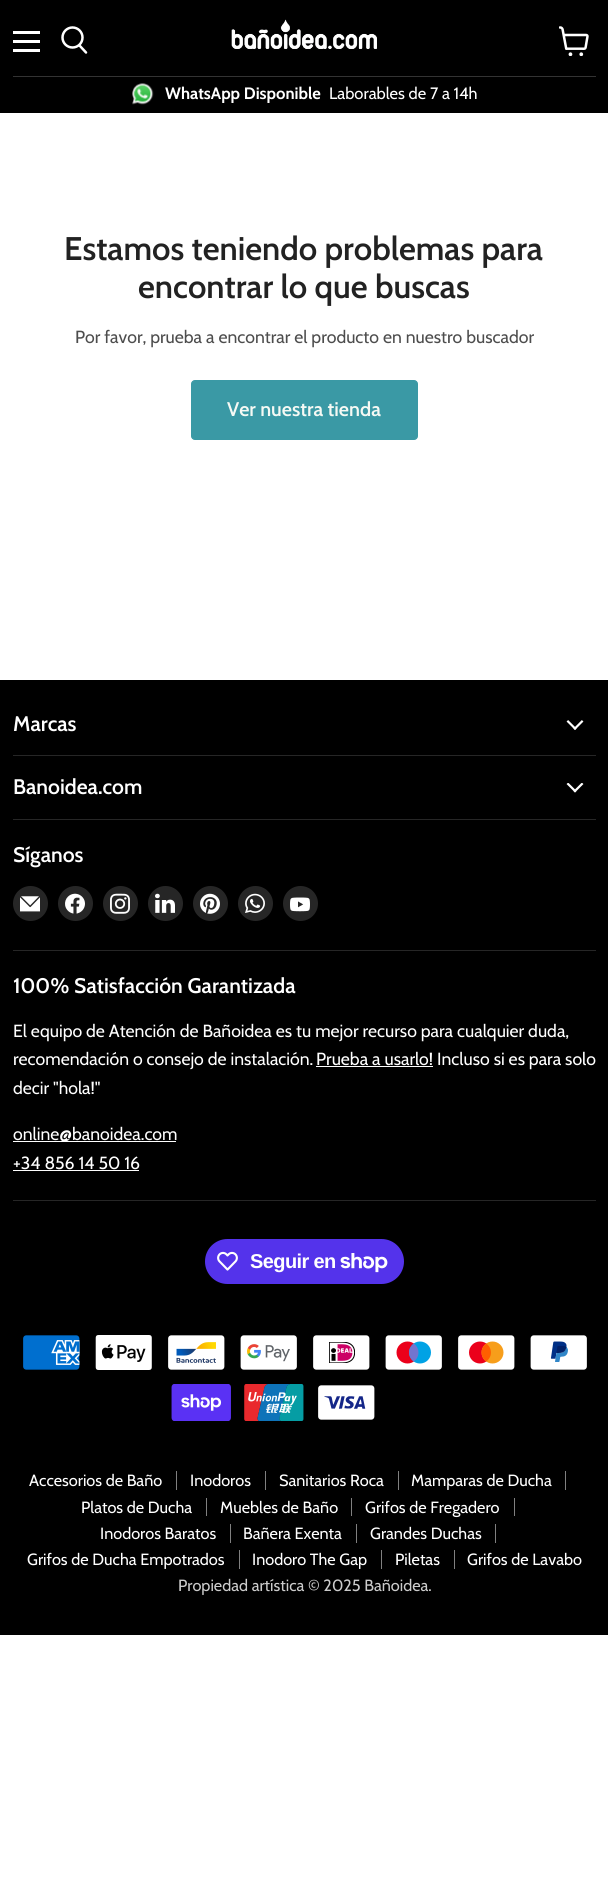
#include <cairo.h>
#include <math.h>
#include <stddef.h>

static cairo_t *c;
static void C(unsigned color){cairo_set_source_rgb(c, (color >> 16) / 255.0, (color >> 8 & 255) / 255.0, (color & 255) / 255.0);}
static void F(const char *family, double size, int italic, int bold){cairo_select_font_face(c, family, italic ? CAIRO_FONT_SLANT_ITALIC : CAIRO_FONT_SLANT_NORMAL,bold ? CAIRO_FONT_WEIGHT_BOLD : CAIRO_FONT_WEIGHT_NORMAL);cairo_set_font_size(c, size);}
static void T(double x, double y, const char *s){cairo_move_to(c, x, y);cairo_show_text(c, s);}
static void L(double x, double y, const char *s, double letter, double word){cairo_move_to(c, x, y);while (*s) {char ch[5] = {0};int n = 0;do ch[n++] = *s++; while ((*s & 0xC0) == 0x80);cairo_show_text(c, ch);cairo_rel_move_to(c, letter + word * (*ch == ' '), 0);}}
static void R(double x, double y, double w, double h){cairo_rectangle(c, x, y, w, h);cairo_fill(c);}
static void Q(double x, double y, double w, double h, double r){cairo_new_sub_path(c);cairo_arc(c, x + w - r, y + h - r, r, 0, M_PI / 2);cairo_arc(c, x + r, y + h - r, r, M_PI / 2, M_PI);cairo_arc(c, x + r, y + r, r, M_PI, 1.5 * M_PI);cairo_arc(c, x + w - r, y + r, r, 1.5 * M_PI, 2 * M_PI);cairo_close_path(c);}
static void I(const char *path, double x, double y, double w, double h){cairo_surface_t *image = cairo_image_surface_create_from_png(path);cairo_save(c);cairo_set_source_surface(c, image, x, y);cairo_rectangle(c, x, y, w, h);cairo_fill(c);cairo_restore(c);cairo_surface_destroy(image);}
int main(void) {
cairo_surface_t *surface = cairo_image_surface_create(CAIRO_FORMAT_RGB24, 608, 1879);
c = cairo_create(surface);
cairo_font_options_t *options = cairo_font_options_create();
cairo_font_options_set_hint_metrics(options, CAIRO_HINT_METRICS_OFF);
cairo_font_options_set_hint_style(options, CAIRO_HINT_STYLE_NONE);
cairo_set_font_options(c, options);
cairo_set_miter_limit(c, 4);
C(0xffffff);
cairo_paint(c);
C(0x000000);
R(0,0,608,113);
C(0xffffff);
R(13,31,27,3);
R(13,40,27,3);
R(13,49,27,3);
cairo_new_path(c);
cairo_move_to(c,86,52.5);
cairo_line_to(c,79.5,45.5);
cairo_set_line_width(c,2.5);
cairo_set_line_cap(c,CAIRO_LINE_CAP_ROUND);
cairo_stroke(c);
cairo_arc(c,72.5,37.5,10,0,2 * M_PI);
cairo_set_line_cap(c,CAIRO_LINE_CAP_BUTT);
cairo_stroke(c);
I("1.png",559,26,30,30);
I("2.png",231,19,146,30);
C(0x333333);
R(13,76,583,1);
I("3.png",132,83,22,22);
F("Cabin",16.5,0,1);
C(0xffffff);
T(165,99,"WhatsApp Disponible");
F("Cabin",16.5,0,0);
T(329,99,"Laborables de 7 a 14h");
F("Cabin SemiBold",32.75,0,0);
C(0x222222);
T(64,260,"Estamos teniendo problemas para");
T(138,298,"encontrar lo que buscas");
F("Cabin",17.6,0,0);
C(0x4d4d4d);
T(75,343,"Por favor, prueba a encontrar el producto en nuestro buscador");
C(0x3a99a5);
Q(191.5,380.5,226,59,3.5);
cairo_fill_preserve(c);
cairo_set_line_width(c,1);
cairo_stroke(c);
F("Cabin SemiBold",19.75,0,0);
C(0xf5f9f4);
T(227,416,"Ver nuestra tienda");
C(0x000000);
R(0,680,608,955);
C(0x262626);
R(13,755,583,1);
F("Cabin SemiBold",21.1,0,0);
C(0xffffff);
T(13,731,"Marcas");
I("4.png",566,720,18,10);
C(0x262626);
R(13,819,583,1);
C(0xffffff);
T(13,794,"Banoidea.com");
I("5.png",566,783,18,10);
C(0x262626);
R(13,950,583,1);
C(0xffffff);
T(13,862,"Síganos");
C(0x262626);
cairo_new_path(c);
cairo_arc(c,30.5,903.5,17.5,0,2 * M_PI);
cairo_fill(c);
I("6.png",20,896,20,16);
cairo_arc(c,75.5,903.5,17.5,0,2 * M_PI);
cairo_fill(c);
I("7.png",65,893,20,21);
cairo_arc(c,120.5,903.5,17.5,0,2 * M_PI);
cairo_fill(c);
I("8.png",110,893,20,21);
cairo_arc(c,165.5,903.5,17.5,0,2 * M_PI);
cairo_fill(c);
I("9.png",155,893,20,20);
cairo_arc(c,210.5,903.5,17.5,0,2 * M_PI);
cairo_fill(c);
I("10.png",200,893,20,21);
cairo_arc(c,255.5,903.5,17.5,0,2 * M_PI);
cairo_fill(c);
I("11.png",245,893,20,20);
cairo_arc(c,300.5,903.5,17.5,0,2 * M_PI);
cairo_fill(c);
I("12.png",290,897,20,15);
R(13,1200,583,1);
C(0xffffff);
T(13,993,"100% Satisfacción Garantizada");
F("Cabin",17.6,0,0);
T(13,1037,"El equipo de Atención de Bañoidea es tu mejor recurso para cualquier duda,");
T(13,1065,"recomendación o consejo de instalación.");
R(316,1066,117,1);
T(316,1065,"Prueba a usarlo! Incluso si es para solo");
T(13,1094,"decir \"hola!\"");
R(13,1141,163,1);
T(13,1140,"online@banoidea.com");
T(13,1169,"+34 856 14 50 16");
R(13,1170,126,1);
C(0x5433eb);
Q(205,1239,199,45,22.5);
cairo_fill(c);
I("13.png",217,1251,21,20);
F("Liberation Sans",20,0,1);
C(0xffffff);
L(250,1268,"Seguir en",-.6,0);
I("14.png",340,1253,48,20);
I("15.png",23,1335,57,35);
I("16.png",95,1335,57,35);
I("17.png",168,1335,57,35);
I("18.png",240,1335,57,35);
I("19.png",313,1335,57,35);
I("20.png",385,1335,57,35);
I("21.png",458,1335,57,35);
I("22.png",530,1335,57,35);
I("23.png",171,1384,60,37);
I("24.png",244,1384,60,37);
I("25.png",318,1385,57,35);
C(0x808080);
R(176,1471,1,19);
F("Cabin",16.25,0,0);
C(0xffffff);
T(29,1486,"Accesorios de Baño");
C(0x808080);
R(265,1471,1,19);
C(0xffffff);
T(190,1486,"Inodoros");
C(0x808080);
R(398,1471,1,19);
C(0xffffff);
T(279,1486,"Sanitarios Roca");
C(0x808080);
R(565,1471,1,19);
C(0xffffff);
T(411,1486,"Mamparas de Ducha");
C(0x808080);
R(206,1498,1,18);
C(0xffffff);
T(81,1513,"Platos de Ducha");
C(0x808080);
R(351,1498,1,18);
C(0xffffff);
T(220,1513,"Muebles de Baño");
C(0x808080);
R(514,1498,1,18);
C(0xffffff);
T(365,1513,"Grifos de Fregadero");
C(0x808080);
R(230,1524,1,19);
C(0xffffff);
T(100,1539,"Inodoros Baratos");
C(0x808080);
R(356,1524,1,19);
C(0xffffff);
T(243,1539,"Bañera Exenta");
C(0x808080);
R(495,1524,1,19);
C(0xffffff);
T(370,1539,"Grandes Duchas");
C(0x808080);
R(239,1550,1,19);
C(0xffffff);
T(27,1565,"Grifos de Ducha Empotrados");
C(0x808080);
R(381,1550,1,19);
C(0xffffff);
T(252,1565,"Inodoro The Gap");
C(0x808080);
R(454,1550,1,19);
C(0xffffff);
T(395,1565,"Piletas");
T(467,1565,"Grifos de Lavabo");
C(0xcccccc);
T(178,1591,"Propiedad artística © 2025 Bañoidea.");
cairo_surface_write_to_png(surface, "o.png");
cairo_font_options_destroy(options);
cairo_destroy(c);
cairo_surface_destroy(surface);
return 0;
}
